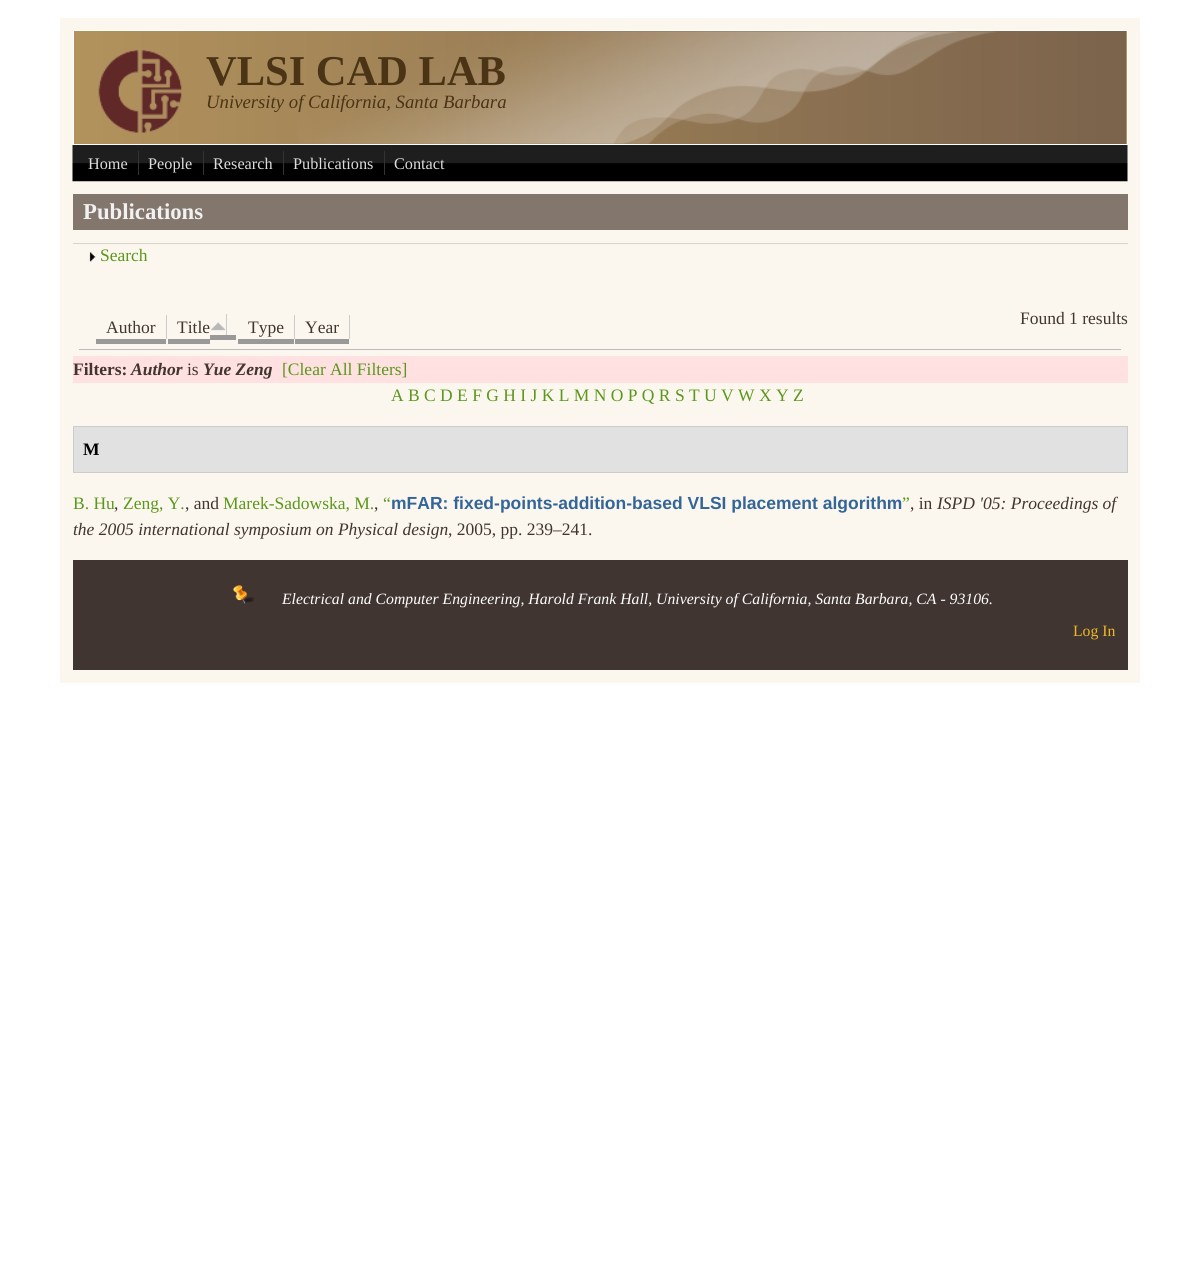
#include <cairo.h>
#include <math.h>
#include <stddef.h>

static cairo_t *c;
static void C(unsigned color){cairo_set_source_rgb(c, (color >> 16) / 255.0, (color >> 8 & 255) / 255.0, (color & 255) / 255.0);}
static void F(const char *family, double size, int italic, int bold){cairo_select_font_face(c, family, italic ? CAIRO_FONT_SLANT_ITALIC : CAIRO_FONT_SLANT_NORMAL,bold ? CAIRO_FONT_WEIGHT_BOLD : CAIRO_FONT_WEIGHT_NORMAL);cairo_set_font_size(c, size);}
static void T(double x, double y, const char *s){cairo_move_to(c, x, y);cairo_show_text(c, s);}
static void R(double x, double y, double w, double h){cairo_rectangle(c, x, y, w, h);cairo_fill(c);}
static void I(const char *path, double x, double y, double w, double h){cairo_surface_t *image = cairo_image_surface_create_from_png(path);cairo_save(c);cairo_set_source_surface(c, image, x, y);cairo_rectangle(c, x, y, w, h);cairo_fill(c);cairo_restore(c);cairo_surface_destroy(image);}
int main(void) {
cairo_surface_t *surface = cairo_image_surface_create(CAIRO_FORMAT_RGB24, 1200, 1262);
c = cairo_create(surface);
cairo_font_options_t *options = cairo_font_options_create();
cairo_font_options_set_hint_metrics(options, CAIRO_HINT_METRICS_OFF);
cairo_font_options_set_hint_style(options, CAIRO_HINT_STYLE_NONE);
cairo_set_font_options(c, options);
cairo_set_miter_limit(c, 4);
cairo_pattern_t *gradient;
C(0xffffff);
cairo_paint(c);
C(0xfcf7ee);
R(60,18,1080,665);
C(0xb2925c);
R(1126,31,1,113);
gradient = cairo_pattern_create_linear(74,31,1126,31);
cairo_pattern_add_color_stop_rgba(gradient,0,0.698,0.573,0.361,1);
cairo_pattern_add_color_stop_rgba(gradient,1,0.482,0.388,0.298,1);
cairo_set_source(c,gradient);
cairo_pattern_destroy(gradient);
R(74,31,1052,113);
cairo_rectangle(c,73.5,30.5,1054,114);
C(0xffffff);
cairo_set_line_width(c,1);
cairo_stroke(c);
I("1.png",298,31,698,113);
I("2.png",98,50,84,83);
F("Liberation Serif",42.5,0,1);
C(0x4b3416);
T(206,85,"VLSI CAD LAB");
F("Liberation Serif",18.75,1,0);
T(206,108,"University of California, Santa Barbara");
I("3.png",72,145,1056,37);
F("Liberation Serif",16.25,0,0);
C(0xdddddd);
T(88,169,"Home");
C(0x333333);
R(138,151,1,24);
C(0xdddddd);
T(148,169,"People");
C(0x333333);
R(203,151,1,24);
C(0xdddddd);
T(213,169,"Research");
C(0x333333);
R(283,151,1,24);
C(0xdddddd);
T(293,169,"Publications");
C(0x333333);
R(384,151,1,24);
C(0xdddddd);
T(394,169,"Contact");
C(0x83766d);
R(73,194,1055,36);
F("Liberation Serif",22.75,0,1);
C(0xf1f1f1);
T(83,219,"Publications");
C(0xd7d4cb);
R(73,243,1055,1);
I("4.png",89,252,7,10);
F("Liberation Serif",17.5,0,0);
C(0x5a971c);
T(100,261,"Search");
C(0x403530);
T(1020,324,"Found 1 results");
C(0xbbbbbb);
R(79,349,1042,1);
C(0x403530);
T(106,333,"Author");
C(0xcccccc);
R(166,315,1,24);
C(0x999999);
R(96,339,70,5);
C(0x403530);
T(177,333,"Title");
C(0xcccccc);
R(226,314,1,21);
C(0x999999);
R(168,339,42,5);
R(210,335,26,5);
I("5.png",211,322,15,9);
C(0x403530);
T(248,333,"Type");
C(0xcccccc);
R(294,315,1,24);
C(0x999999);
R(238,339,56,5);
C(0x403530);
T(305,333,"Year");
C(0xcccccc);
R(349,315,1,24);
C(0x999999);
R(295,339,54,5);
C(0xffe1e1);
R(73,356,1055,27);
F("Liberation Serif",17.5,0,1);
C(0x403530);
T(73,375,"Filters:");
F("Liberation Serif",17.5,1,1);
T(131,375,"Author");
F("Liberation Serif",17.5,0,0);
T(187,375,"is");
F("Liberation Serif",17.5,1,1);
T(203,375,"Yue Zeng");
F("Liberation Serif",17.5,0,0);
C(0x5a971c);
T(282,375,"[Clear All Filters]");
T(391,401,"A B C D E F G H I J K L M N O P Q R S T U V W X Y Z");
C(0xe1e1e1);
cairo_rectangle(c,73.5,426.5,1054,46);
cairo_fill_preserve(c);
C(0xcccccc);
cairo_stroke(c);
F("Liberation Serif",17.5,0,1);
C(0x000000);
T(83,455,"M");
F("Liberation Serif",17.5,0,0);
C(0x5a971c);
T(73,509,"B. Hu");
C(0x403530);
T(114,509,",");
C(0x5a971c);
T(123,509,"Zeng, Y.");
C(0x403530);
T(185,509,", and");
C(0x5a971c);
T(223,509,"Marek-Sadowska, M.");
C(0x403530);
T(374,509,",");
C(0x5a971c);
T(383,509,"“");
F("Liberation Sans",17.5,0,1);
C(0x336599);
T(391,509,"mFAR: fixed-points-addition-based VLSI placement algorithm");
F("Liberation Serif",17.5,0,0);
C(0x5a971c);
T(902,509,"”");
C(0x403530);
T(910,509,", in");
F("Liberation Serif",17.5,1,0);
T(937,509,"ISPD '05: Proceedings of");
T(73,535,"the 2005 international symposium on Physical design");
F("Liberation Serif",17.5,0,0);
T(448,535,", 2005, pp. 239–241.");
R(73,560,1055,110);
I("6.png",233,585,21,19);
F("Liberation Serif",15.75,1,0);
C(0xffffff);
T(282,604,"Electrical and Computer Engineering, Harold Frank Hall, University of California, Santa Barbara, CA - 93106.");
F("Liberation Serif",15.75,0,0);
C(0xefb82a);
T(1073,636,"Log In");
cairo_surface_write_to_png(surface, "o.png");
cairo_font_options_destroy(options);
cairo_destroy(c);
cairo_surface_destroy(surface);
return 0;
}
